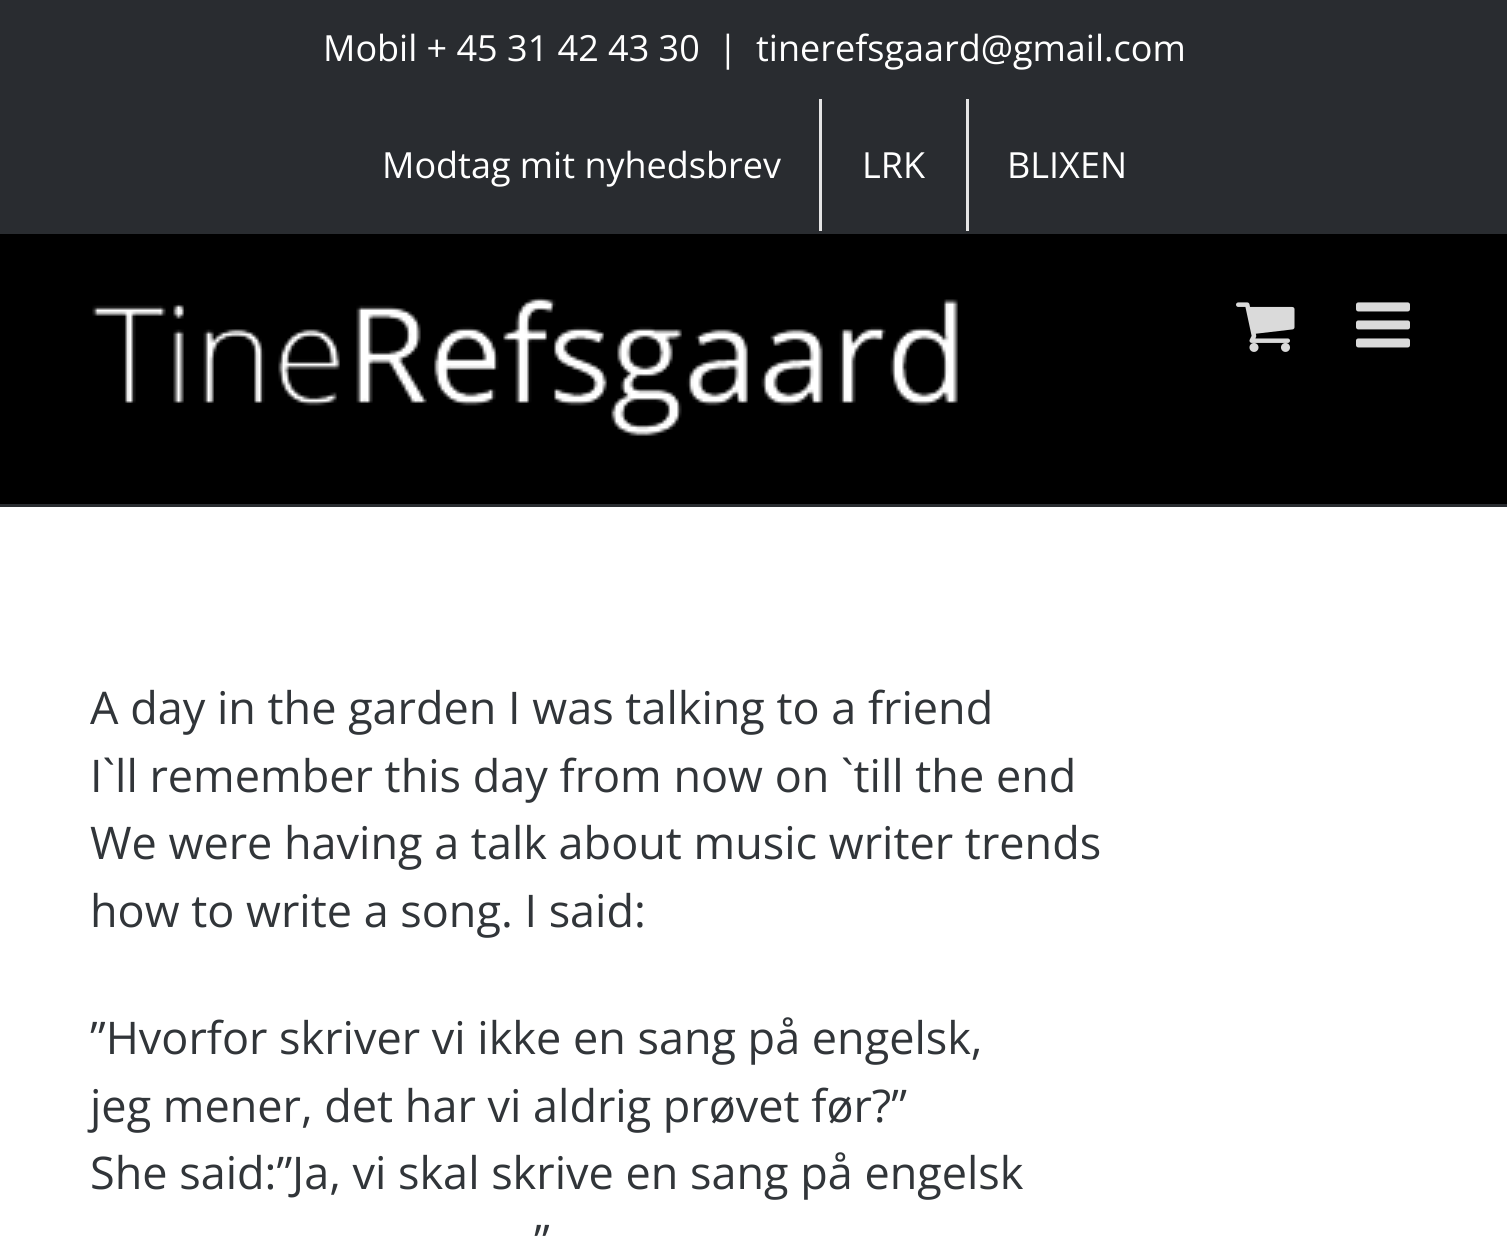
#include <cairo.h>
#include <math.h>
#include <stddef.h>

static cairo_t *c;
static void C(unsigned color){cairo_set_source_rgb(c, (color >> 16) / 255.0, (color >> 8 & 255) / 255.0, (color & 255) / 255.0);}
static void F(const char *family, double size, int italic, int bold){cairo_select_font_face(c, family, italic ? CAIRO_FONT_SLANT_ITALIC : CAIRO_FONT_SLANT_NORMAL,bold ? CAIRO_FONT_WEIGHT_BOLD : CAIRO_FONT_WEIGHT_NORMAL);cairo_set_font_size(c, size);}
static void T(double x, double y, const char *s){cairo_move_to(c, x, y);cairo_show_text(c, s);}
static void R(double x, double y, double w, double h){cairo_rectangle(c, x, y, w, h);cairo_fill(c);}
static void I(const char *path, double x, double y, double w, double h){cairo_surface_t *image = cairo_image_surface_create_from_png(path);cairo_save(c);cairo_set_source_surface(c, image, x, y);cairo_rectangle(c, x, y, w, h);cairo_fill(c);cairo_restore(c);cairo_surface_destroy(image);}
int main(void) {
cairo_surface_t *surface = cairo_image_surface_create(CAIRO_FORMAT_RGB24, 1507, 1237);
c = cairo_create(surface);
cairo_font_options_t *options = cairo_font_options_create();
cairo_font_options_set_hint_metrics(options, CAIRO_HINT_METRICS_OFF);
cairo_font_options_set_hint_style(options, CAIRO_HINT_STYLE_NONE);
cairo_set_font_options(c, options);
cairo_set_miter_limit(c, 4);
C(0xffffff);
cairo_paint(c);
C(0x292c30);
R(0,0,1507,234);
F("Open Sans",36,0,0);
C(0xffffff);
T(323,61,"Mobil + 45 31 42 43 30");
T(718,61,"|");
T(756,61,"tinerefsgaard@gmail.com");
T(382,178,"Modtag mit nyhedsbrev");
C(0xe5e5e5);
R(819,99,3,132);
C(0xffffff);
T(862,178,"LRK");
C(0xe5e5e5);
R(966,99,3,132);
C(0xffffff);
T(1007,178,"BLIXEN");
C(0x000000);
R(0,234,1507,270);
C(0x292c30);
R(0,504,1507,3);
I("1.png",92,297,866,139);
I("2.png",1236,302,59,50);
I("3.png",1356,302,54,46);
F("Open Sans",45,0,0);
C(0x313539);
T(90,724,"A day in the garden I was talking to a friend");
T(90,792,"I`ll remember this day from now on `till the end");
T(90,859,"We were having a talk about music writer trends");
T(90,927,"how to write a song. I said:");
T(90,1054,"”Hvorfor skriver vi ikke en sang på engelsk,");
T(90,1122,"jeg mener, det har vi aldrig prøvet før?”");
T(90,1189,"She said:”Ja, vi skal skrive en sang på engelsk");
T(534,1257,"”");
cairo_surface_write_to_png(surface, "o.png");
cairo_font_options_destroy(options);
cairo_destroy(c);
cairo_surface_destroy(surface);
return 0;
}
